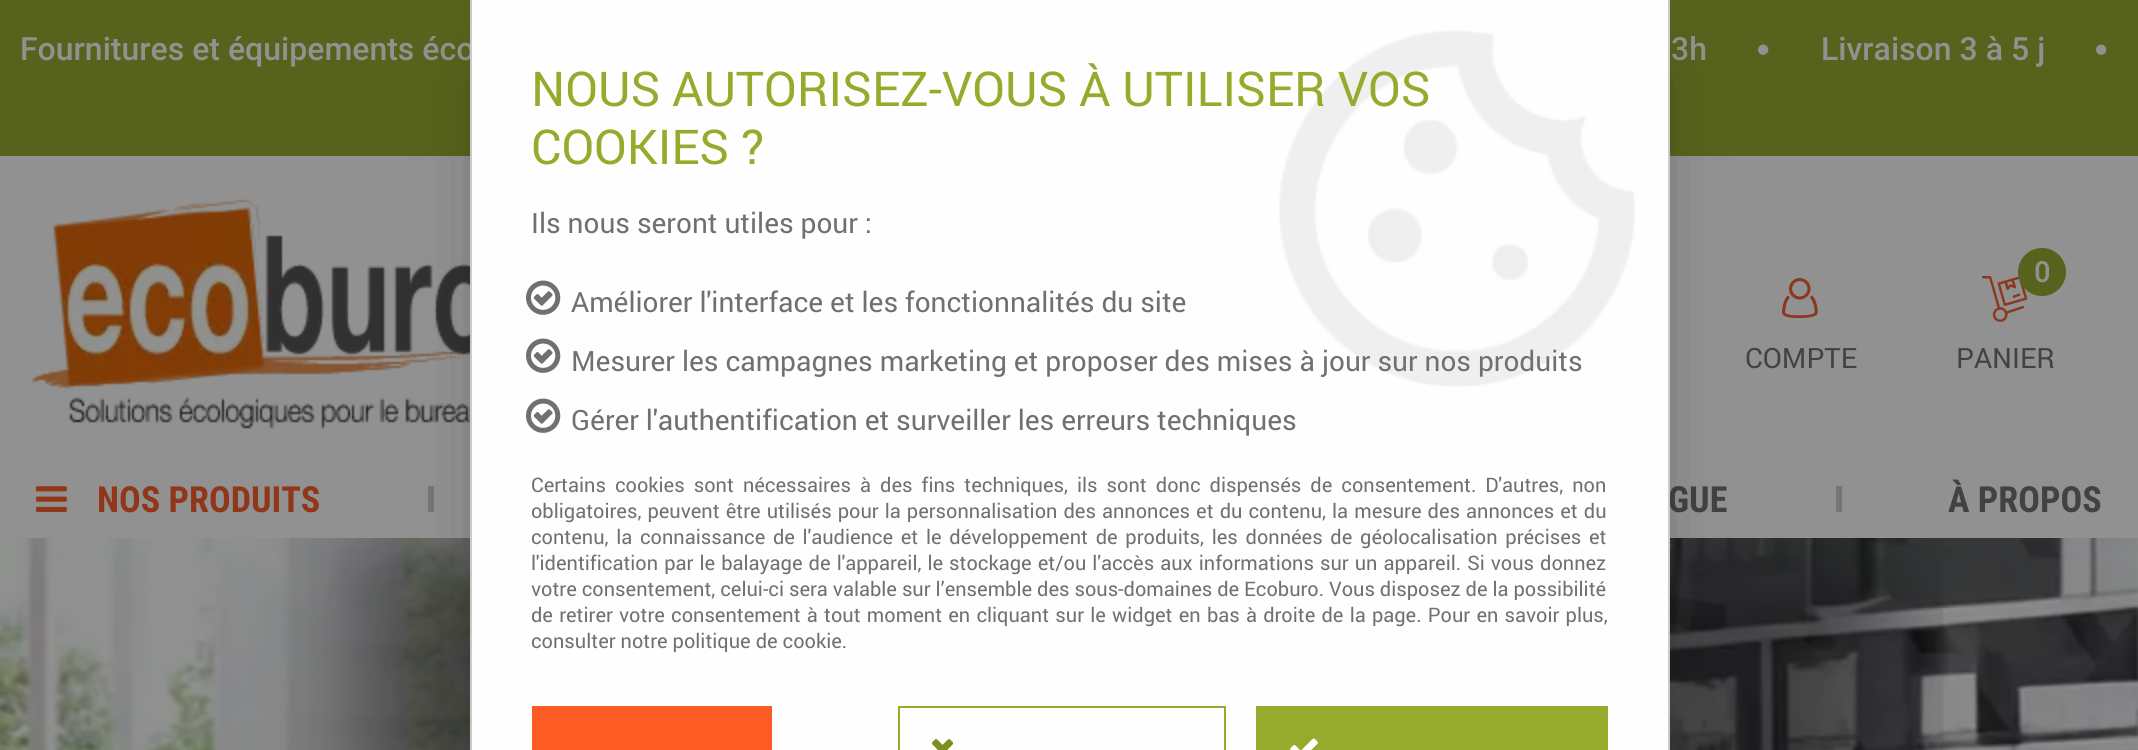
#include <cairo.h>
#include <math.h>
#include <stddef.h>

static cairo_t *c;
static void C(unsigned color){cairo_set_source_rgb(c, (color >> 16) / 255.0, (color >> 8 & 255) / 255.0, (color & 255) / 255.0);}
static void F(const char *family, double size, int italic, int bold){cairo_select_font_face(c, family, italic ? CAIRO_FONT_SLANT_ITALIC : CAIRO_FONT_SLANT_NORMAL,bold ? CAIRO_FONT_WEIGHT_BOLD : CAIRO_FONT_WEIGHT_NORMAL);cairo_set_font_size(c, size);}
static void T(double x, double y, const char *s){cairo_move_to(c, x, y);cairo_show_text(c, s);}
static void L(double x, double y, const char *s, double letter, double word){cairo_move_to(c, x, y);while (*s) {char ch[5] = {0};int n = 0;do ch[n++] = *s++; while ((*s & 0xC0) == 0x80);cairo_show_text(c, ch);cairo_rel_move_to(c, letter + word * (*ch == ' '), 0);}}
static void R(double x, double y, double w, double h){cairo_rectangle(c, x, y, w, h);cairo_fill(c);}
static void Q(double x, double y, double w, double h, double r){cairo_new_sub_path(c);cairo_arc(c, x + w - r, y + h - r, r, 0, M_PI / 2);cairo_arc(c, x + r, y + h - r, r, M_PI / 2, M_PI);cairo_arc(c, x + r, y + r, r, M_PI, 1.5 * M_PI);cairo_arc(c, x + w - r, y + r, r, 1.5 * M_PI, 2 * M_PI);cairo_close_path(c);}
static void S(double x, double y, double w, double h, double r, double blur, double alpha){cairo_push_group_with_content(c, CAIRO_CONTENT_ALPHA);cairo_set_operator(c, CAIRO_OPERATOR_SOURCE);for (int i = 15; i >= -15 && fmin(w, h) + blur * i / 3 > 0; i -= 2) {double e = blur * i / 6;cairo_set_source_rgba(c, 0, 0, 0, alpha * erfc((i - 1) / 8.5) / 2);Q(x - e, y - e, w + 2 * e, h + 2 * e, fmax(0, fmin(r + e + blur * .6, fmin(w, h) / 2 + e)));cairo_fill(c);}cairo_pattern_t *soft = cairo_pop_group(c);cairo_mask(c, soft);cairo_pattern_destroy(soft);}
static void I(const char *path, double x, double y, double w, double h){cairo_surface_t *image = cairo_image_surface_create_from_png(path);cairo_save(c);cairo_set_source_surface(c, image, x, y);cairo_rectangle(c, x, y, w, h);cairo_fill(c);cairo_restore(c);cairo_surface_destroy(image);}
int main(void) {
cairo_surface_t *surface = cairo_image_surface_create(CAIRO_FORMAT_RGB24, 2138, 750);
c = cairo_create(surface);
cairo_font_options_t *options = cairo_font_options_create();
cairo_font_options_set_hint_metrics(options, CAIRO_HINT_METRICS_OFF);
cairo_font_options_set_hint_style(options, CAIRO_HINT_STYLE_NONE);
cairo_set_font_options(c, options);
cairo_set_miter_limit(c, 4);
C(0x919191);
cairo_paint(c);
C(0x57631c);
R(0,0,2138,156);
F("Roboto Medium",32,0,0);
C(0x919191);
T(20,60,"Fournitures et équipements éco");
T(1671,60,"3h");
I("1.png",1758,44,11,11);
T(1821,60,"Livraison 3 à 5 j");
I("1.png",2096,44,11,11);
I("2.png",31,199,439,230);
I("3.png",1782,278,36,40);
F("roboto",28,0,0);
C(0x424242);
T(1745,368,"COMPTE");
I("4.png",1982,276,46,46);
C(0x57631c);
cairo_arc(c,2042,272,24,0,2 * M_PI);
cairo_fill(c);
F("roboto",28,0,1);
C(0x919191);
T(2034,282,"0");
F("roboto",28,0,0);
C(0x424242);
T(1956,368,"PANIER");
I("5.png",36,486,31,26);
F("Roboto Condensed",36,0,1);
C(0x903719);
T(97,512,"NOS PRODUITS");
C(0x757575);
R(428,486,6,26);
C(0x424242);
T(1668,512,"GUE");
C(0x757575);
R(1836,486,6,26);
C(0x424242);
T(1948,512,"À PROPOS");
I("6.png",0,538,2138,212);
C(0x000000);
S(510,78,1120,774,0,40,.5);
C(0xfefefe);
R(472,0,1196,750);
I("7.png",1279,30,356,357);
cairo_rectangle(c,471,-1,1198,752);
C(0xcacaca);
cairo_stroke(c);
F("roboto",48,0,0);
C(0x96ab2b);
T(531,106,"NOUS AUTORISEZ-VOUS À UTILISER VOS");
T(531,164,"COOKIES ?");
F("roboto",28,0,0);
C(0x707070);
T(531,233,"Ils nous seront utiles pour :");
I("8.png",526,280,35,35);
T(571,312,"Améliorer l'interface et les fonctionnalités du site");
I("8.png",526,338,35,35);
T(571,371,"Mesurer les campagnes marketing et proposer des mises à jour sur nos produits");
I("8.png",526,398,35,35);
T(571,430,"Gérer l'authentification et surveiller les erreurs techniques");
F("roboto",20,0,0);
L(531,492,"Certains cookies sont nécessaires à des fins techniques, ils sont donc dispensés de consentement. D'autres, non",0,4.1);
L(531,518,"obligatoires, peuvent être utilisés pour la personnalisation des annonces et du contenu, la mesure des annonces et du",0,1.1);
L(531,544,"contenu, la connaissance de l'audience et le développement de produits, les données de géolocalisation précises et",0,2.75);
L(531,570,"l'identification par le balayage de l'appareil, le stockage et/ou l'accès aux informations sur un appareil. Si vous donnez",0,1.1);
T(531,596,"votre consentement, celui-ci sera valable sur l’ensemble des sous-domaines de Ecoburo. Vous disposez de la possibilité");
L(531,622,"de retirer votre consentement à tout moment en cliquant sur le widget en bas à droite de la page. Pour en savoir plus,",0,1.25);
T(531,648,"consulter notre politique de cookie.");
C(0xfd5c25);
R(532,706,240,44);
cairo_rectangle(c,899,707,326,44);
C(0x96ab2b);
cairo_stroke(c);
I("9.png",932,739,22,11);
R(1256,706,352,44);
I("10.png",1290,738,28,12);
cairo_surface_write_to_png(surface, "o.png");
cairo_font_options_destroy(options);
cairo_destroy(c);
cairo_surface_destroy(surface);
return 0;
}
